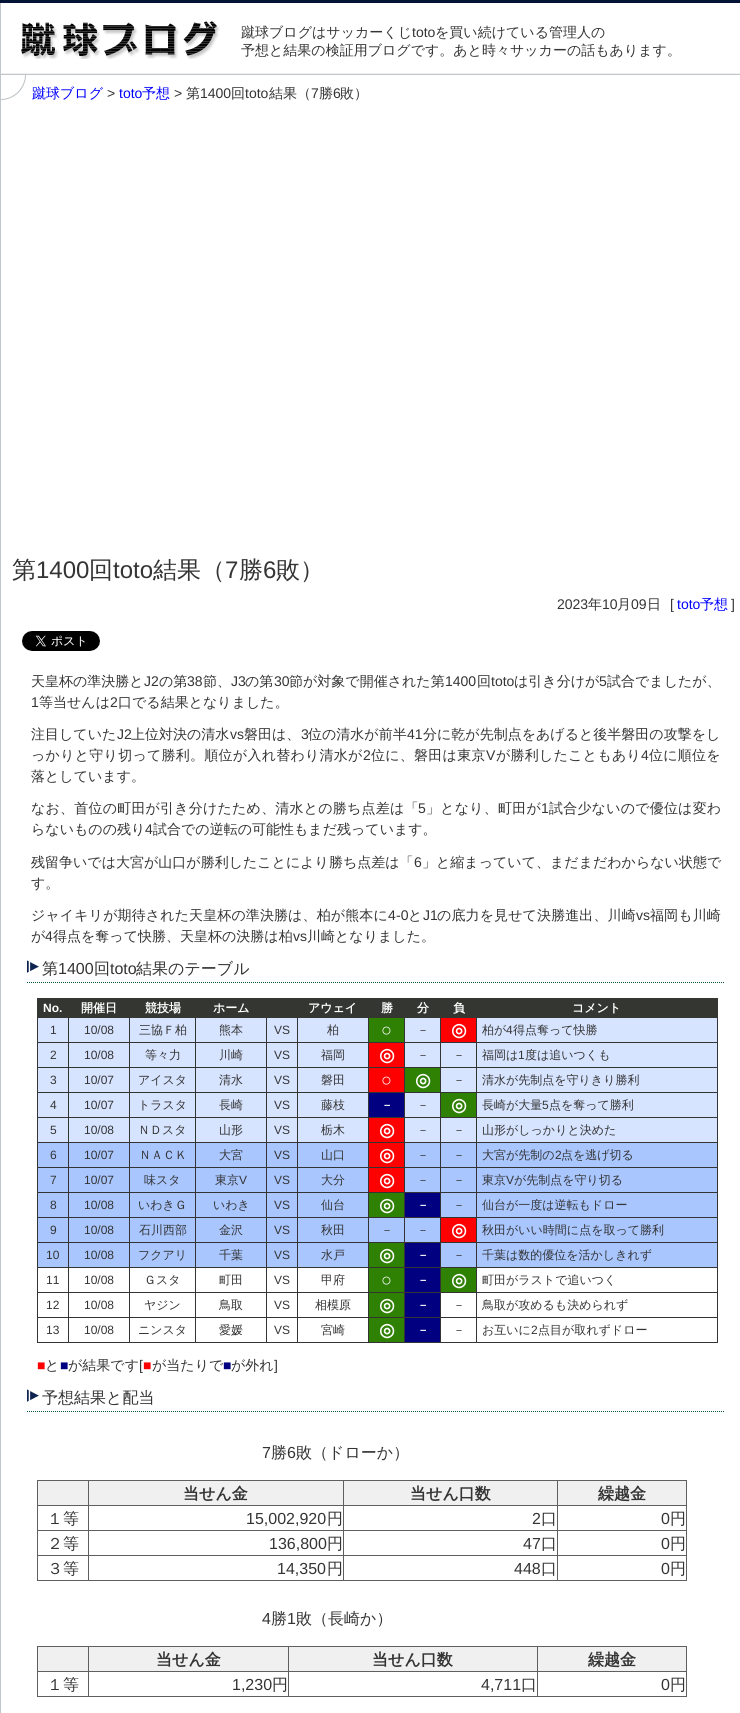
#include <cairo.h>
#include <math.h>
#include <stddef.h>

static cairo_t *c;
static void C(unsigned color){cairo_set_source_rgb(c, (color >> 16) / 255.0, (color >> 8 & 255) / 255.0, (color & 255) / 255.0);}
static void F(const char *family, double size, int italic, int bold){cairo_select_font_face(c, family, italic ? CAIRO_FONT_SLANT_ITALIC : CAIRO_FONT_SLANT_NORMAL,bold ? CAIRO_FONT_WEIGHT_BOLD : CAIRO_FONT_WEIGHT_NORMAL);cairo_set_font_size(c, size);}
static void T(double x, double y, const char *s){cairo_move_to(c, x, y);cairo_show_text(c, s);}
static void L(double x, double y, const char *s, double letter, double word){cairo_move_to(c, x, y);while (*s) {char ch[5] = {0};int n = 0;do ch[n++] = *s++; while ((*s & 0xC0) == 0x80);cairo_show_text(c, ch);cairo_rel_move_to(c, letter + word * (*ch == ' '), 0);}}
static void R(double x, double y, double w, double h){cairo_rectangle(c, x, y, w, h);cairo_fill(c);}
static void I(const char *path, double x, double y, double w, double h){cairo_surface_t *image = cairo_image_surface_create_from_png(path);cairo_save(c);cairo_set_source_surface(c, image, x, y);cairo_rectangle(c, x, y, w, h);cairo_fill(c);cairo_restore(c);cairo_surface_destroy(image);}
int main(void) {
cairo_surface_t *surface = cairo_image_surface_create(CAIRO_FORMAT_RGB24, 740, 1713);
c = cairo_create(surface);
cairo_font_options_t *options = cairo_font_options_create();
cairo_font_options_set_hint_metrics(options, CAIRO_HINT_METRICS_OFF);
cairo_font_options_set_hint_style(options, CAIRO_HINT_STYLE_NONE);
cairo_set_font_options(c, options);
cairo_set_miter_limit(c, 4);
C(0xffffff);
cairo_paint(c);
C(0x031335);
R(0,0,740,3);
C(0xc0c6c9);
R(0,3,1,1710);
I("1.png",21,21,199,38);
F("WenQuanYi Zen Hei Medium",14,0,0);
C(0x343434);
T(241,37,"蹴球ブログはサッカーくじ");
F("Liberation Sans",14,0,0);
T(412,37,"toto");
F("WenQuanYi Zen Hei Medium",14,0,0);
T(435,37,"を買い続けている管理人の");
T(241,55,"予想と結果の検証用ブログです。あと時々サッカーの話もあります。");
I("2.png",1,73,739,27);
C(0x0000ff);
T(32,98,"蹴球ブログ");
F("Liberation Sans",14,0,0);
C(0x343434);
T(107,98,">");
C(0x0000ff);
T(119,98,"toto");
F("WenQuanYi Zen Hei Medium",14,0,0);
T(142,98,"予想");
F("Liberation Sans",14,0,0);
C(0x343434);
T(174,98,">");
F("WenQuanYi Zen Hei Medium",14,0,0);
T(186,98,"第");
F("Liberation Sans",14,0,0);
T(200,98,"1400");
F("WenQuanYi Zen Hei Medium",14,0,0);
T(231,98,"回");
F("Liberation Sans",14,0,0);
T(245,98,"toto");
F("WenQuanYi Zen Hei Medium",14,0,0);
T(269,98,"結果（");
F("Liberation Sans",14,0,0);
T(311,98,"7");
F("WenQuanYi Zen Hei Medium",14,0,0);
T(319,98,"勝");
F("Liberation Sans",14,0,0);
T(333,98,"6");
F("WenQuanYi Zen Hei Medium",14,0,0);
T(340,98,"敗）");
F("WenQuanYi Zen Hei Medium",24,0,0);
T(12,578,"第");
F("Liberation Sans",24,0,0);
T(36,578,"1400");
F("WenQuanYi Zen Hei Medium",24,0,0);
T(89,578,"回");
F("Liberation Sans",24,0,0);
T(113,578,"toto");
F("WenQuanYi Zen Hei Medium",24,0,0);
T(153,578,"結果（");
F("Liberation Sans",24,0,0);
T(225,578,"7");
F("WenQuanYi Zen Hei Medium",24,0,0);
T(239,578,"勝");
F("Liberation Sans",24,0,0);
T(263,578,"6");
F("WenQuanYi Zen Hei Medium",24,0,0);
T(276,578,"敗）");
F("Liberation Sans",14,0,0);
T(557,609,"2023");
F("WenQuanYi Zen Hei Medium",14,0,0);
T(588,609,"年");
F("Liberation Sans",14,0,0);
T(602,609,"10");
F("WenQuanYi Zen Hei Medium",14,0,0);
T(617,609,"月");
F("Liberation Sans",14,0,0);
T(631,609,"09");
F("WenQuanYi Zen Hei Medium",14,0,0);
T(647,609,"日");
F("Liberation Sans",14,0,0);
T(670,609,"[");
C(0x0000ff);
T(677,609,"toto");
F("WenQuanYi Zen Hei Medium",14,0,0);
T(700,609,"予想");
F("Liberation Sans",14,0,0);
C(0x343434);
T(731,609,"]");
I("3.png",22,631,78,20);
F("WenQuanYi Zen Hei Medium",14,0,0);
T(31,686,"天皇杯の準決勝と");
F("Liberation Sans",14,0,0);
T(144,686,"J2");
F("WenQuanYi Zen Hei Medium",14,0,0);
T(159,686,"の第");
F("Liberation Sans",14,0,0);
T(187,686,"38");
F("WenQuanYi Zen Hei Medium",14,0,0);
T(203,686,"節、");
F("Liberation Sans",14,0,0);
T(231,686,"J3");
F("WenQuanYi Zen Hei Medium",14,0,0);
T(245,686,"の第");
F("Liberation Sans",14,0,0);
T(274,686,"30");
F("WenQuanYi Zen Hei Medium",14,0,0);
T(289,686,"節が対象で開催された第");
F("Liberation Sans",14,0,0);
T(445,686,"1400");
F("WenQuanYi Zen Hei Medium",14,0,0);
T(477,686,"回");
F("Liberation Sans",14,0,0);
T(491,686,"toto");
F("WenQuanYi Zen Hei Medium",14,0,0);
T(514,686,"は引き分けが");
F("Liberation Sans",14,0,0);
T(599,686,"5");
F("WenQuanYi Zen Hei Medium",14,0,0);
T(607,686,"試合でましたが、");
F("Liberation Sans",14,0,0);
T(31,707,"1");
F("WenQuanYi Zen Hei Medium",14,0,0);
T(39,707,"等当せんは");
F("Liberation Sans",14,0,0);
T(110,707,"2");
F("WenQuanYi Zen Hei Medium",14,0,0);
T(118,707,"口でる結果となりました。");
T(31,739,"注目していた");
F("Liberation Sans",14,0,0);
T(117,739,"J2");
F("WenQuanYi Zen Hei Medium",14,0,0);
T(131,739,"上位対決の清水");
F("Liberation Sans",14,0,0);
T(230,739,"vs");
F("WenQuanYi Zen Hei Medium",14,0,0);
T(244,739,"磐田は、");
F("Liberation Sans",14,0,0);
T(301,739,"3");
F("WenQuanYi Zen Hei Medium",14,0,0);
T(308,739,"位の清水が前半");
F("Liberation Sans",14,0,0);
T(407,739,"41");
F("WenQuanYi Zen Hei Medium",14,0,0);
T(423,739,"分に乾が先制点をあげると後半磐田の攻撃をし");
L(31,760,"っかりと守り切って勝利。順位が入れ替わり清水が",.25,0);
F("Liberation Sans",14,0,0);
L(363,760,"2",.25,0);
F("WenQuanYi Zen Hei Medium",14,0,0);
L(371,760,"位に、磐田は東京",.25,0);
F("Liberation Sans",14,0,0);
L(486,760,"V",.25,0);
F("WenQuanYi Zen Hei Medium",14,0,0);
L(496,760,"が勝利したこともあり",.25,0);
F("Liberation Sans",14,0,0);
L(641,760,"4",.25,0);
F("WenQuanYi Zen Hei Medium",14,0,0);
L(649,760,"位に順位を",.25,0);
T(31,781,"落としています。");
L(31,813,"なお、首位の町田が引き分けたため、清水との勝ち点差は「",.2,0);
F("Liberation Sans",14,0,0);
L(418,813,"5",.2,0);
F("WenQuanYi Zen Hei Medium",14,0,0);
L(426,813,"」となり、町田が",.2,0);
F("Liberation Sans",14,0,0);
L(541,813,"1",.2,0);
F("WenQuanYi Zen Hei Medium",14,0,0);
L(549,813,"試合少ないので優位は変わ",.2,0);
T(31,834,"らないものの残り");
F("Liberation Sans",14,0,0);
T(145,834,"4");
F("WenQuanYi Zen Hei Medium",14,0,0);
T(153,834,"試合での逆転の可能性もまだ残っています。");
T(31,867,"残留争いでは大宮が山口が勝利したことにより勝ち点差は「");
F("Liberation Sans",14,0,0);
T(414,867,"6");
F("WenQuanYi Zen Hei Medium",14,0,0);
T(422,867,"」と縮まっていて、まだまだわからない状態で");
T(31,888,"す。");
L(31,920,"ジャイキリが期待された天皇杯の準決勝は、柏が熊本に",.1,0);
F("Liberation Sans",14,0,0);
L(388,920,"4-0",.1,0);
F("WenQuanYi Zen Hei Medium",14,0,0);
L(408,920,"と",.1,0);
F("Liberation Sans",14,0,0);
L(423,920,"J1",.1,0);
F("WenQuanYi Zen Hei Medium",14,0,0);
L(437,920,"の底力を見せて決勝進出、川崎",.1,0);
F("Liberation Sans",14,0,0);
L(636,920,"vs",.1,0);
F("WenQuanYi Zen Hei Medium",14,0,0);
L(650,920,"福岡も川崎",.1,0);
T(31,941,"が");
F("Liberation Sans",14,0,0);
T(45,941,"4");
F("WenQuanYi Zen Hei Medium",14,0,0);
T(53,941,"得点を奪って快勝、天皇杯の決勝は柏");
F("Liberation Sans",14,0,0);
T(293,941,"vs");
F("WenQuanYi Zen Hei Medium",14,0,0);
T(307,941,"川崎となりました。");
I("4.png",27,960,12,13);
cairo_new_path(c);
cairo_move_to(c,27,982.5);
cairo_line_to(c,725,982.5);
C(0x00552e);
cairo_set_line_width(c,1);
cairo_set_dash(c,(double[]){1,1},2,0);
cairo_stroke(c);
F("WenQuanYi Zen Hei Medium",16,0,0);
C(0x343434);
T(42,974,"第");
F("Liberation Sans",16,0,0);
T(58,974,"1400");
F("WenQuanYi Zen Hei Medium",16,0,0);
T(94,974,"回");
F("Liberation Sans",16,0,0);
T(110,974,"toto");
F("WenQuanYi Zen Hei Medium",16,0,0);
T(136,974,"結果のテーブル");
C(0x333631);
R(38,999,31,18);
R(37,998,32,1);
C(0xd7e4ff);
R(38,1018,679,124);
C(0x343434);
R(476,1042,242,1);
R(476,1067,242,1);
R(476,1092,242,1);
R(476,1117,242,1);
R(476,1142,242,1);
C(0xa9c6ff);
R(38,1143,679,124);
C(0x343434);
R(476,1167,242,1);
R(476,1192,242,1);
R(476,1217,242,1);
R(476,1242,242,1);
R(476,1267,242,1);
R(476,1292,242,1);
R(476,1317,242,1);
R(717,1317,1,26);
R(717,1292,1,26);
R(717,1267,1,26);
R(717,1242,1,26);
R(717,1217,1,26);
R(717,1192,1,26);
R(717,1167,1,26);
R(717,1142,1,26);
R(717,1117,1,26);
R(717,1092,1,26);
R(717,1067,1,26);
R(717,1017,1,51);
C(0x333631);
R(717,998,1,20);
C(0x343434);
R(476,1342,242,1);
R(476,1317,1,26);
R(440,1317,37,1);
R(476,1292,1,26);
R(440,1292,37,1);
R(476,1267,1,26);
R(440,1267,37,1);
R(476,1242,1,26);
R(440,1242,37,1);
R(476,1217,1,26);
R(440,1217,37,1);
R(476,1192,1,26);
R(440,1192,37,1);
R(476,1167,1,26);
R(440,1167,37,1);
R(476,1142,1,26);
R(440,1142,37,1);
R(476,1117,1,26);
R(440,1117,37,1);
R(476,1092,1,26);
R(440,1092,37,1);
R(476,1067,1,26);
R(440,1067,37,1);
R(476,1042,1,26);
R(440,1042,37,1);
R(440,1342,37,1);
R(440,1317,1,26);
R(404,1317,37,1);
R(440,1292,1,26);
R(404,1292,37,1);
R(440,1267,1,26);
R(404,1267,37,1);
R(440,1242,1,26);
R(404,1242,37,1);
R(440,1217,1,26);
R(404,1217,37,1);
R(440,1192,1,26);
R(404,1192,37,1);
R(440,1167,1,26);
R(404,1167,37,1);
R(440,1142,1,26);
R(404,1142,37,1);
R(440,1117,1,26);
R(404,1117,37,1);
R(440,1092,1,26);
R(404,1092,37,1);
R(440,1067,1,26);
R(404,1067,37,1);
R(440,1042,1,26);
R(404,1042,37,1);
R(404,1342,37,1);
R(404,1317,1,26);
R(368,1317,37,1);
R(404,1292,1,26);
R(368,1292,37,1);
R(404,1267,1,26);
R(368,1267,37,1);
R(404,1242,1,26);
R(368,1242,37,1);
R(404,1217,1,26);
R(368,1217,37,1);
R(404,1192,1,26);
R(368,1192,37,1);
R(404,1167,1,26);
R(368,1167,37,1);
R(404,1142,1,26);
R(368,1142,37,1);
R(404,1117,1,26);
R(368,1117,37,1);
R(404,1092,1,26);
R(368,1092,37,1);
R(404,1067,1,26);
R(368,1067,37,1);
R(404,1042,1,26);
R(368,1042,37,1);
R(368,1342,37,1);
R(368,1317,1,26);
R(297,1317,72,1);
R(368,1292,1,26);
R(297,1292,72,1);
R(368,1267,1,26);
R(297,1267,72,1);
R(368,1242,1,26);
R(297,1242,72,1);
R(368,1217,1,26);
R(297,1217,72,1);
R(368,1192,1,26);
R(297,1192,72,1);
R(368,1167,1,26);
R(297,1167,72,1);
R(368,1142,1,26);
R(297,1142,72,1);
R(368,1117,1,26);
R(297,1117,72,1);
R(368,1092,1,26);
R(297,1092,72,1);
R(368,1067,1,26);
R(297,1067,72,1);
R(368,1042,1,26);
R(297,1042,72,1);
R(297,1342,72,1);
R(297,1317,1,26);
R(266,1317,32,1);
R(297,1292,1,26);
R(266,1292,32,1);
R(297,1267,1,26);
R(266,1267,32,1);
R(297,1242,1,26);
R(266,1242,32,1);
R(297,1217,1,26);
R(266,1217,32,1);
R(297,1192,1,26);
R(266,1192,32,1);
R(297,1167,1,26);
R(266,1167,32,1);
R(297,1142,1,26);
R(266,1142,32,1);
R(297,1117,1,26);
R(266,1117,32,1);
R(297,1092,1,26);
R(266,1092,32,1);
R(297,1067,1,26);
R(266,1067,32,1);
R(297,1042,1,26);
R(266,1042,32,1);
R(266,1342,32,1);
R(266,1317,1,26);
R(195,1317,72,1);
R(266,1292,1,26);
R(195,1292,72,1);
R(266,1267,1,26);
R(195,1267,72,1);
R(266,1242,1,26);
R(195,1242,72,1);
R(266,1217,1,26);
R(195,1217,72,1);
R(266,1192,1,26);
R(195,1192,72,1);
R(266,1167,1,26);
R(195,1167,72,1);
R(266,1142,1,26);
R(195,1142,72,1);
R(266,1117,1,26);
R(195,1117,72,1);
R(266,1092,1,26);
R(195,1092,72,1);
R(266,1067,1,26);
R(195,1067,72,1);
R(266,1042,1,26);
R(195,1042,72,1);
R(195,1342,72,1);
R(195,1317,1,26);
R(129,1317,67,1);
R(195,1292,1,26);
R(129,1292,67,1);
R(195,1267,1,26);
R(129,1267,67,1);
R(195,1242,1,26);
R(129,1242,67,1);
R(195,1217,1,26);
R(129,1217,67,1);
R(195,1192,1,26);
R(129,1192,67,1);
R(195,1167,1,26);
R(129,1167,67,1);
R(195,1142,1,26);
R(129,1142,67,1);
R(195,1117,1,26);
R(129,1117,67,1);
R(195,1092,1,26);
R(129,1092,67,1);
R(195,1067,1,26);
R(129,1067,67,1);
R(195,1042,1,26);
R(129,1042,67,1);
R(129,1342,67,1);
R(129,1317,1,26);
R(68,1317,62,1);
R(129,1292,1,26);
R(68,1292,62,1);
R(129,1267,1,26);
R(68,1267,62,1);
R(129,1242,1,26);
R(68,1242,62,1);
R(129,1217,1,26);
R(68,1217,62,1);
R(129,1192,1,26);
R(68,1192,62,1);
R(129,1167,1,26);
R(68,1167,62,1);
R(129,1142,1,26);
R(68,1142,62,1);
R(129,1117,1,26);
R(68,1117,62,1);
R(129,1092,1,26);
R(68,1092,62,1);
R(129,1067,1,26);
R(68,1067,62,1);
R(129,1042,1,26);
R(68,1042,62,1);
R(68,1342,62,1);
R(68,1317,1,26);
R(37,1317,32,1);
R(68,1292,1,26);
R(37,1292,32,1);
R(68,1267,1,26);
R(37,1267,32,1);
R(68,1242,1,26);
R(37,1242,32,1);
R(68,1217,1,26);
R(37,1217,32,1);
R(68,1192,1,26);
R(37,1192,32,1);
R(68,1167,1,26);
R(37,1167,32,1);
R(68,1142,1,26);
R(37,1142,32,1);
R(68,1117,1,26);
R(37,1117,32,1);
R(68,1092,1,26);
R(37,1092,32,1);
R(68,1067,1,26);
R(37,1067,32,1);
R(68,1042,1,26);
R(37,1042,32,1);
R(68,1017,1,26);
R(129,1017,1,26);
R(195,1017,1,26);
R(266,1017,1,26);
R(297,1017,1,26);
R(368,1017,1,26);
R(404,1017,1,26);
R(440,1017,1,26);
R(476,1017,1,26);
R(37,1342,32,1);
R(37,1317,1,26);
R(37,1292,1,26);
R(37,1267,1,26);
R(37,1242,1,26);
R(37,1217,1,26);
R(37,1192,1,26);
R(37,1167,1,26);
R(37,1142,1,26);
R(37,1117,1,26);
R(37,1092,1,26);
R(37,1067,1,26);
R(37,1017,1,51);
C(0x333631);
R(37,1017,681,1);
R(37,998,1,20);
F("Liberation Sans",12,0,1);
C(0xffffff);
T(43,1012,"No.");
C(0x333631);
R(69,998,648,19);
F("WenQuanYi Zen Hei",12,0,1);
C(0xffffff);
T(81,1012,"開催日");
T(145,1012,"競技場");
T(213,1012,"ホーム");
T(308,1012,"アウェイ");
T(381,1012,"勝");
T(417,1012,"分");
T(453,1012,"負");
T(572,1012,"コメント");
F("Liberation Sans",12,0,0);
C(0x343434);
T(50,1034,"1");
T(84,1034,"10/08");
F("WenQuanYi Zen Hei Medium",12,0,0);
T(139,1034,"三協Ｆ柏");
T(219,1034,"熊本");
F("Liberation Sans",12,0,0);
T(274,1034,"VS");
F("WenQuanYi Zen Hei Medium",12,0,0);
T(327,1034,"柏");
C(0x2f8103);
R(369,1018,35,24);
F("Liberation Sans",18,0,1);
C(0xffffff);
T(381,1036,"○");
F("WenQuanYi Zen Hei Medium",12,0,0);
C(0x343434);
T(417,1034,"－");
C(0xff0000);
R(441,1018,35,24);
F("DejaVu Sans",18,0,1);
C(0xffffff);
T(451,1036,"◎");
F("WenQuanYi Zen Hei Medium",12,0,0);
C(0x343434);
T(482,1034,"柏が");
F("Liberation Sans",12,0,0);
T(506,1034,"4");
F("WenQuanYi Zen Hei Medium",12,0,0);
T(513,1034,"得点奪って快勝");
F("Liberation Sans",12,0,0);
T(50,1059,"2");
T(84,1059,"10/08");
F("WenQuanYi Zen Hei Medium",12,0,0);
T(145,1059,"等々力");
T(219,1059,"川崎");
F("Liberation Sans",12,0,0);
T(274,1059,"VS");
F("WenQuanYi Zen Hei Medium",12,0,0);
T(321,1059,"福岡");
C(0xff0000);
R(369,1043,35,24);
F("DejaVu Sans",18,0,1);
C(0xffffff);
T(379,1061,"◎");
F("WenQuanYi Zen Hei Medium",12,0,0);
C(0x343434);
T(417,1059,"－");
T(453,1059,"－");
T(482,1059,"福岡は");
F("Liberation Sans",12,0,0);
T(518,1059,"1");
F("WenQuanYi Zen Hei Medium",12,0,0);
T(525,1059,"度は追いつくも");
F("Liberation Sans",12,0,0);
T(50,1084,"3");
T(84,1084,"10/07");
F("WenQuanYi Zen Hei Medium",12,0,0);
T(138,1084,"アイスタ");
T(219,1084,"清水");
F("Liberation Sans",12,0,0);
T(274,1084,"VS");
F("WenQuanYi Zen Hei Medium",12,0,0);
T(321,1084,"磐田");
C(0xff0000);
R(369,1068,35,24);
F("Liberation Sans",18,0,1);
C(0xffffff);
T(381,1086,"○");
C(0x2f8103);
R(405,1068,35,24);
F("DejaVu Sans",18,0,1);
C(0xffffff);
T(415,1086,"◎");
F("WenQuanYi Zen Hei Medium",12,0,0);
C(0x343434);
T(453,1084,"－");
T(482,1084,"清水が先制点を守りきり勝利");
F("Liberation Sans",12,0,0);
T(50,1109,"4");
T(84,1109,"10/07");
F("WenQuanYi Zen Hei Medium",12,0,0);
T(138,1109,"トラスタ");
T(219,1109,"長崎");
F("Liberation Sans",12,0,0);
T(274,1109,"VS");
F("WenQuanYi Zen Hei Medium",12,0,0);
T(321,1109,"藤枝");
C(0x000080);
R(369,1093,35,24);
F("WenQuanYi Zen Hei",12,0,1);
C(0xffffff);
T(381,1109,"－");
F("WenQuanYi Zen Hei Medium",12,0,0);
C(0x343434);
T(417,1109,"－");
C(0x2f8103);
R(441,1093,35,24);
F("DejaVu Sans",18,0,1);
C(0xffffff);
T(451,1111,"◎");
F("WenQuanYi Zen Hei Medium",12,0,0);
C(0x343434);
T(482,1109,"長崎が大量");
F("Liberation Sans",12,0,0);
T(542,1109,"5");
F("WenQuanYi Zen Hei Medium",12,0,0);
T(549,1109,"点を奪って勝利");
F("Liberation Sans",12,0,0);
T(50,1134,"5");
T(84,1134,"10/08");
F("WenQuanYi Zen Hei Medium",12,0,0);
T(138,1134,"ＮＤスタ");
T(219,1134,"山形");
F("Liberation Sans",12,0,0);
T(274,1134,"VS");
F("WenQuanYi Zen Hei Medium",12,0,0);
T(321,1134,"栃木");
C(0xff0000);
R(369,1118,35,24);
F("DejaVu Sans",18,0,1);
C(0xffffff);
T(379,1136,"◎");
F("WenQuanYi Zen Hei Medium",12,0,0);
C(0x343434);
T(417,1134,"－");
T(453,1134,"－");
T(482,1134,"山形がしっかりと決めた");
F("Liberation Sans",12,0,0);
T(50,1159,"6");
T(84,1159,"10/07");
F("WenQuanYi Zen Hei Medium",12,0,0);
T(139,1159,"ＮＡＣＫ");
T(219,1159,"大宮");
F("Liberation Sans",12,0,0);
T(274,1159,"VS");
F("WenQuanYi Zen Hei Medium",12,0,0);
T(321,1159,"山口");
C(0xff0000);
R(369,1143,35,24);
F("DejaVu Sans",18,0,1);
C(0xffffff);
T(379,1161,"◎");
F("WenQuanYi Zen Hei Medium",12,0,0);
C(0x343434);
T(417,1159,"－");
T(453,1159,"－");
T(482,1159,"大宮が先制の");
F("Liberation Sans",12,0,0);
T(555,1159,"2");
F("WenQuanYi Zen Hei Medium",12,0,0);
T(561,1159,"点を逃げ切る");
F("Liberation Sans",12,0,0);
T(50,1184,"7");
T(84,1184,"10/07");
F("WenQuanYi Zen Hei Medium",12,0,0);
T(144,1184,"味スタ");
T(215,1184,"東京");
F("Liberation Sans",12,0,0);
T(239,1184,"V");
T(274,1184,"VS");
F("WenQuanYi Zen Hei Medium",12,0,0);
T(321,1184,"大分");
C(0xff0000);
R(369,1168,35,24);
F("DejaVu Sans",18,0,1);
C(0xffffff);
T(379,1186,"◎");
F("WenQuanYi Zen Hei Medium",12,0,0);
C(0x343434);
T(417,1184,"－");
T(453,1184,"－");
T(482,1184,"東京");
F("Liberation Sans",12,0,0);
T(506,1184,"V");
F("WenQuanYi Zen Hei Medium",12,0,0);
T(514,1184,"が先制点を守り切る");
F("Liberation Sans",12,0,0);
T(50,1209,"8");
T(84,1209,"10/08");
F("WenQuanYi Zen Hei Medium",12,0,0);
T(138,1209,"いわきＧ");
T(213,1209,"いわき");
F("Liberation Sans",12,0,0);
T(274,1209,"VS");
F("WenQuanYi Zen Hei Medium",12,0,0);
T(321,1209,"仙台");
C(0x2f8103);
R(369,1193,35,24);
F("DejaVu Sans",18,0,1);
C(0xffffff);
T(379,1211,"◎");
C(0x000080);
R(405,1193,35,24);
F("WenQuanYi Zen Hei",12,0,1);
C(0xffffff);
T(417,1209,"－");
F("WenQuanYi Zen Hei Medium",12,0,0);
C(0x343434);
T(453,1209,"－");
T(482,1209,"仙台が一度は逆転もドロー");
F("Liberation Sans",12,0,0);
T(50,1234,"9");
T(84,1234,"10/08");
F("WenQuanYi Zen Hei Medium",12,0,0);
T(139,1234,"石川西部");
T(219,1234,"金沢");
F("Liberation Sans",12,0,0);
T(274,1234,"VS");
F("WenQuanYi Zen Hei Medium",12,0,0);
T(321,1234,"秋田");
T(381,1234,"－");
T(417,1234,"－");
C(0xff0000);
R(441,1218,35,24);
F("DejaVu Sans",18,0,1);
C(0xffffff);
T(451,1236,"◎");
F("WenQuanYi Zen Hei Medium",12,0,0);
C(0x343434);
T(482,1234,"秋田がいい時間に点を取って勝利");
F("Liberation Sans",12,0,0);
T(46,1259,"10");
T(84,1259,"10/08");
F("WenQuanYi Zen Hei Medium",12,0,0);
T(138,1259,"フクアリ");
T(219,1259,"千葉");
F("Liberation Sans",12,0,0);
T(274,1259,"VS");
F("WenQuanYi Zen Hei Medium",12,0,0);
T(321,1259,"水戸");
C(0x2f8103);
R(369,1243,35,24);
F("DejaVu Sans",18,0,1);
C(0xffffff);
T(379,1261,"◎");
C(0x000080);
R(405,1243,35,24);
F("WenQuanYi Zen Hei",12,0,1);
C(0xffffff);
T(417,1259,"－");
F("WenQuanYi Zen Hei Medium",12,0,0);
C(0x343434);
T(453,1259,"－");
T(482,1259,"千葉は数的優位を活かしきれず");
F("Liberation Sans",12,0,0);
T(46,1284,"11");
T(84,1284,"10/08");
F("WenQuanYi Zen Hei Medium",12,0,0);
T(144,1284,"Ｇスタ");
T(219,1284,"町田");
F("Liberation Sans",12,0,0);
T(274,1284,"VS");
F("WenQuanYi Zen Hei Medium",12,0,0);
T(321,1284,"甲府");
C(0x2f8103);
R(369,1268,35,24);
F("Liberation Sans",18,0,1);
C(0xffffff);
T(381,1286,"○");
C(0x000080);
R(405,1268,35,24);
F("WenQuanYi Zen Hei",12,0,1);
C(0xffffff);
T(417,1284,"－");
C(0x2f8103);
R(441,1268,35,24);
F("DejaVu Sans",18,0,1);
C(0xffffff);
T(451,1286,"◎");
F("WenQuanYi Zen Hei Medium",12,0,0);
C(0x343434);
T(482,1284,"町田がラストで追いつく");
F("Liberation Sans",12,0,0);
T(46,1309,"12");
T(84,1309,"10/08");
F("WenQuanYi Zen Hei Medium",12,0,0);
T(144,1309,"ヤジン");
T(219,1309,"鳥取");
F("Liberation Sans",12,0,0);
T(274,1309,"VS");
F("WenQuanYi Zen Hei Medium",12,0,0);
T(315,1309,"相模原");
C(0x2f8103);
R(369,1293,35,24);
F("DejaVu Sans",18,0,1);
C(0xffffff);
T(379,1311,"◎");
C(0x000080);
R(405,1293,35,24);
F("WenQuanYi Zen Hei",12,0,1);
C(0xffffff);
T(417,1309,"－");
F("WenQuanYi Zen Hei Medium",12,0,0);
C(0x343434);
T(453,1309,"－");
T(482,1309,"鳥取が攻めるも決められず");
F("Liberation Sans",12,0,0);
T(46,1334,"13");
T(84,1334,"10/08");
F("WenQuanYi Zen Hei Medium",12,0,0);
T(138,1334,"ニンスタ");
T(219,1334,"愛媛");
F("Liberation Sans",12,0,0);
T(274,1334,"VS");
F("WenQuanYi Zen Hei Medium",12,0,0);
T(321,1334,"宮崎");
C(0x2f8103);
R(369,1318,35,24);
F("DejaVu Sans",18,0,1);
C(0xffffff);
T(379,1336,"◎");
C(0x000080);
R(405,1318,35,24);
F("WenQuanYi Zen Hei",12,0,1);
C(0xffffff);
T(417,1334,"－");
F("WenQuanYi Zen Hei Medium",12,0,0);
C(0x343434);
T(453,1334,"－");
T(482,1334,"お互いに");
F("Liberation Sans",12,0,0);
T(531,1334,"2");
F("WenQuanYi Zen Hei Medium",12,0,0);
T(538,1334,"点目が取れずドロー");
F("Liberation Sans",14,0,0);
C(0xff0000);
T(37,1370,"■");
F("WenQuanYi Zen Hei Medium",14,0,0);
C(0x343434);
T(45,1370,"と");
F("Liberation Sans",14,0,0);
C(0x000080);
T(60,1370,"■");
F("WenQuanYi Zen Hei Medium",14,0,0);
C(0x343434);
T(68,1370,"が結果です");
F("Liberation Sans",14,0,0);
T(139,1370,"[");
C(0xff0000);
T(143,1370,"■");
F("WenQuanYi Zen Hei Medium",14,0,0);
C(0x343434);
T(152,1370,"が当たりで");
F("Liberation Sans",14,0,0);
C(0x000080);
T(223,1370,"■");
F("WenQuanYi Zen Hei Medium",14,0,0);
C(0x343434);
T(231,1370,"が外れ");
F("Liberation Sans",14,0,0);
T(274,1370,"]");
I("4.png",27,1389,12,13);
cairo_new_path(c);
cairo_move_to(c,27,1411.5);
cairo_line_to(c,725,1411.5);
C(0x00552e);
cairo_stroke(c);
F("WenQuanYi Zen Hei Medium",16,0,0);
C(0x343434);
T(42,1403,"予想結果と配当");
F("Liberation Sans",16,0,0);
T(262,1458,"7");
F("WenQuanYi Zen Hei Medium",16,0,0);
T(271,1458,"勝");
F("Liberation Sans",16,0,0);
T(287,1458,"6");
F("WenQuanYi Zen Hei Medium",16,0,0);
T(296,1458,"敗（ドローか）");
C(0x5f5f5f);
R(37,1480,650,1);
R(686,1480,1,101);
R(37,1580,650,1);
R(37,1480,1,101);
C(0xf0f0f0);
R(38,1481,50,24);
R(89,1481,254,24);
C(0x5f5f5f);
R(557,1505,130,1);
R(557,1530,130,1);
R(557,1555,130,1);
R(557,1555,1,26);
R(343,1555,215,1);
R(557,1530,1,26);
R(343,1530,215,1);
R(557,1505,1,26);
R(343,1505,215,1);
R(343,1555,1,26);
R(88,1555,256,1);
R(343,1530,1,26);
R(88,1530,256,1);
R(343,1505,1,26);
R(88,1505,256,1);
R(88,1555,1,26);
R(37,1555,52,1);
R(88,1530,1,26);
R(37,1530,52,1);
R(88,1505,1,26);
R(37,1505,52,1);
R(88,1480,1,26);
F("WenQuanYi Zen Hei",16,0,1);
C(0x343434);
T(183,1499,"当せん金");
C(0xf0f0f0);
R(344,1481,213,24);
C(0x5f5f5f);
R(343,1480,1,26);
C(0x343434);
T(410,1499,"当せん口数");
C(0xf0f0f0);
R(558,1481,128,24);
C(0x5f5f5f);
R(557,1480,1,26);
C(0x343434);
T(598,1499,"繰越金");
F("WenQuanYi Zen Hei Medium",16,0,0);
T(47,1524,"１等");
F("Liberation Sans",16,0,0);
T(246,1524,"15,002,920");
F("WenQuanYi Zen Hei Medium",16,0,0);
T(327,1524,"円");
F("Liberation Sans",16,0,0);
T(532,1524,"2");
F("WenQuanYi Zen Hei Medium",16,0,0);
T(541,1524,"口");
F("Liberation Sans",16,0,0);
T(661,1524,"0");
F("WenQuanYi Zen Hei Medium",16,0,0);
T(670,1524,"円");
T(47,1549,"２等");
F("Liberation Sans",16,0,0);
T(269,1549,"136,800");
F("WenQuanYi Zen Hei Medium",16,0,0);
T(327,1549,"円");
F("Liberation Sans",16,0,0);
T(523,1549,"47");
F("WenQuanYi Zen Hei Medium",16,0,0);
T(541,1549,"口");
F("Liberation Sans",16,0,0);
T(661,1549,"0");
F("WenQuanYi Zen Hei Medium",16,0,0);
T(670,1549,"円");
T(47,1574,"３等");
F("Liberation Sans",16,0,0);
T(277,1574,"14,350");
F("WenQuanYi Zen Hei Medium",16,0,0);
T(327,1574,"円");
F("Liberation Sans",16,0,0);
T(514,1574,"448");
F("WenQuanYi Zen Hei Medium",16,0,0);
T(541,1574,"口");
F("Liberation Sans",16,0,0);
T(661,1574,"0");
F("WenQuanYi Zen Hei Medium",16,0,0);
T(670,1574,"円");
F("Liberation Sans",16,0,0);
T(262,1624,"4");
F("WenQuanYi Zen Hei Medium",16,0,0);
T(271,1624,"勝");
F("Liberation Sans",16,0,0);
T(287,1624,"1");
F("WenQuanYi Zen Hei Medium",16,0,0);
T(296,1624,"敗（長崎か）");
C(0x5f5f5f);
R(37,1646,650,1);
R(686,1646,1,51);
R(37,1696,650,1);
R(37,1646,1,51);
C(0xf0f0f0);
R(38,1647,50,24);
R(89,1647,199,24);
C(0x5f5f5f);
R(537,1671,150,1);
R(537,1671,1,26);
R(288,1671,250,1);
R(288,1671,1,26);
R(88,1671,201,1);
R(88,1671,1,26);
R(37,1671,52,1);
R(88,1646,1,26);
F("WenQuanYi Zen Hei",16,0,1);
C(0x343434);
T(156,1665,"当せん金");
C(0xf0f0f0);
R(289,1647,248,24);
C(0x5f5f5f);
R(288,1646,1,26);
C(0x343434);
T(372,1665,"当せん口数");
C(0xf0f0f0);
R(538,1647,148,24);
C(0x5f5f5f);
R(537,1646,1,26);
C(0x343434);
T(588,1665,"繰越金");
F("WenQuanYi Zen Hei Medium",16,0,0);
T(47,1690,"１等");
F("Liberation Sans",16,0,0);
T(232,1690,"1,230");
F("WenQuanYi Zen Hei Medium",16,0,0);
T(272,1690,"円");
F("Liberation Sans",16,0,0);
T(481,1690,"4,711");
F("WenQuanYi Zen Hei Medium",16,0,0);
T(521,1690,"口");
F("Liberation Sans",16,0,0);
T(661,1690,"0");
F("WenQuanYi Zen Hei Medium",16,0,0);
T(670,1690,"円");
cairo_surface_write_to_png(surface, "o.png");
cairo_font_options_destroy(options);
cairo_destroy(c);
cairo_surface_destroy(surface);
return 0;
}
